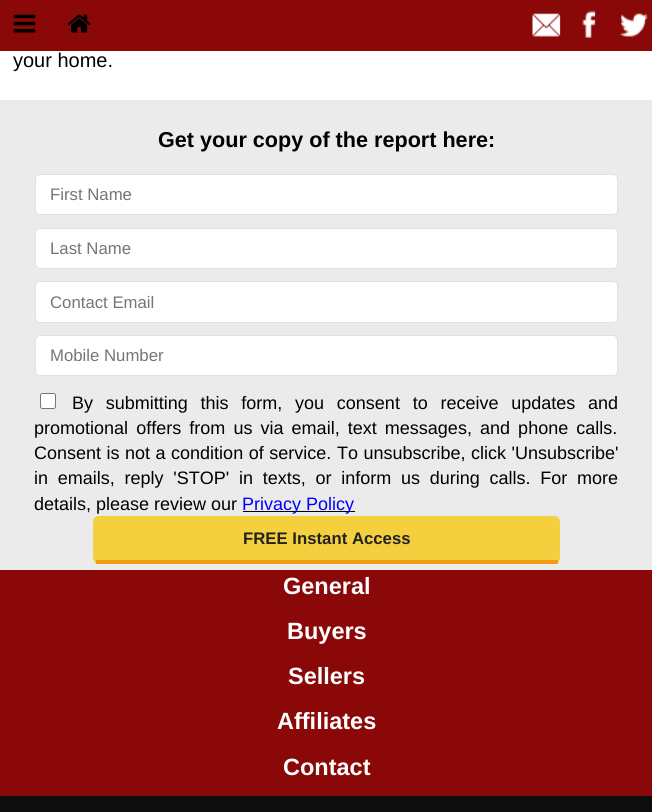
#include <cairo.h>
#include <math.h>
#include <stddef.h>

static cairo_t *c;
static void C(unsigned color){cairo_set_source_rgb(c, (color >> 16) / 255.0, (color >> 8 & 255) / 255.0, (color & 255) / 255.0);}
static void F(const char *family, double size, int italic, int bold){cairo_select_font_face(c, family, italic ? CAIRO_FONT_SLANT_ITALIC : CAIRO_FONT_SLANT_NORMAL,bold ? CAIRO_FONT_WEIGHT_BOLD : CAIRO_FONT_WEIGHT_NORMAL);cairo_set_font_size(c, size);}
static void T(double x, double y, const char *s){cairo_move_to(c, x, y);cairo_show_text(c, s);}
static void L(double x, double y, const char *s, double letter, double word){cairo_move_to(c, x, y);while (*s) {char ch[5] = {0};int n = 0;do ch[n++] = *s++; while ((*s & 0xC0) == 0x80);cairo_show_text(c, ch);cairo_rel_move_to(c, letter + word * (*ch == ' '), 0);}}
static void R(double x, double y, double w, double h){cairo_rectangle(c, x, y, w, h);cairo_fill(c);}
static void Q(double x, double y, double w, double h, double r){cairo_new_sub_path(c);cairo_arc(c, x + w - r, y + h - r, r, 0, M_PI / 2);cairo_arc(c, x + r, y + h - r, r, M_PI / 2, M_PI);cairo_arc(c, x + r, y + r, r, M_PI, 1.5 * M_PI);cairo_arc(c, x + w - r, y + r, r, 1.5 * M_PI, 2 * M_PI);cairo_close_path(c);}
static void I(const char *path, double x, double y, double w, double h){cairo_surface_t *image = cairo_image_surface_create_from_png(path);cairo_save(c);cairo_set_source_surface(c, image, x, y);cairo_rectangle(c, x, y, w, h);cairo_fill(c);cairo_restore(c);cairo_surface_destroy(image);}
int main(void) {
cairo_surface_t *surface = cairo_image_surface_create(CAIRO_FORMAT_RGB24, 652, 812);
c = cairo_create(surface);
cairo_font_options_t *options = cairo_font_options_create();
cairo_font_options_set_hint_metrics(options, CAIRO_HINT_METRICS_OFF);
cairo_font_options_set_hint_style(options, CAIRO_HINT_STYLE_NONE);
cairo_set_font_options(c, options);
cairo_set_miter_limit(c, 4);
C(0x0d0d0d);
cairo_paint(c);
C(0x8a0808);
R(0,0,652,51);
I("1.png",13,14,23,19);
I("2.png",67,14,24,19);
I("3.png",532,13,29,24);
I("4.png",582,10,14,28);
I("5.png",620,13,28,24);
C(0xffffff);
R(0,51,652,49);
F("Liberation Sans",20,0,0);
C(0x000000);
T(13,67,"your home.");
C(0xebebeb);
R(0,100,652,470);
F("Liberation Sans",21.6,0,1);
C(0x000000);
T(158,147,"Get your copy of the report here:");
C(0xffffff);
Q(35.5,174.5,582,40,4.5);
cairo_fill_preserve(c);
C(0xe1e1e1);
cairo_set_line_width(c,1);
cairo_stroke(c);
F("Liberation Sans",16.75,0,0);
C(0x757575);
T(50,200,"First Name");
C(0xffffff);
Q(35.5,228.5,582,40,4.5);
cairo_fill_preserve(c);
C(0xe1e1e1);
cairo_stroke(c);
C(0x757575);
T(50,254,"Last Name");
C(0xffffff);
Q(35.5,281.5,582,41,4.5);
cairo_fill_preserve(c);
C(0xe1e1e1);
cairo_stroke(c);
C(0x757575);
T(50,308,"Contact Email");
C(0xffffff);
Q(35.5,335.5,582,40,4.5);
cairo_fill_preserve(c);
C(0xe1e1e1);
cairo_stroke(c);
C(0x757575);
T(50,361,"Mobile Number");
C(0xffffff);
Q(40.5,393.5,15,15,2);
cairo_fill_preserve(c);
C(0x767676);
cairo_stroke(c);
F("Liberation Sans",18,0,0);
C(0x000000);
L(72,409,"By submitting this form, you consent to receive updates and",0,7.75);
L(34,434,"promotional offers from us via email, text messages, and phone calls.",0,3.1);
L(34,459,"Consent is not a condition of service.",0,.5);
L(337,459,"To unsubscribe, click 'Unsubscribe'",0,.5);
L(34,484,"in emails, reply 'STOP' in texts, or inform us during calls. For more",0,4.75);
T(34,510,"details, please review our");
R(243,511,112,1);
C(0x0000ff);
T(242,510,"Privacy Policy");
C(0xf4d03f);
Q(93,516,467,48,6);
cairo_fill(c);
C(0xf39c12);
R(96,560,462,4);
F("Liberation Sans",16.75,0,1);
C(0x222222);
T(243,544,"FREE Instant Access");
C(0x8a0808);
R(0,570,652,226);
F("Liberation Sans",23.5,0,1);
C(0xffffff);
T(283,594,"General");
T(287,639,"Buyers");
T(288,684,"Sellers");
T(277,729,"Affiliates");
T(283,775,"Contact");
cairo_surface_write_to_png(surface, "o.png");
cairo_font_options_destroy(options);
cairo_destroy(c);
cairo_surface_destroy(surface);
return 0;
}
